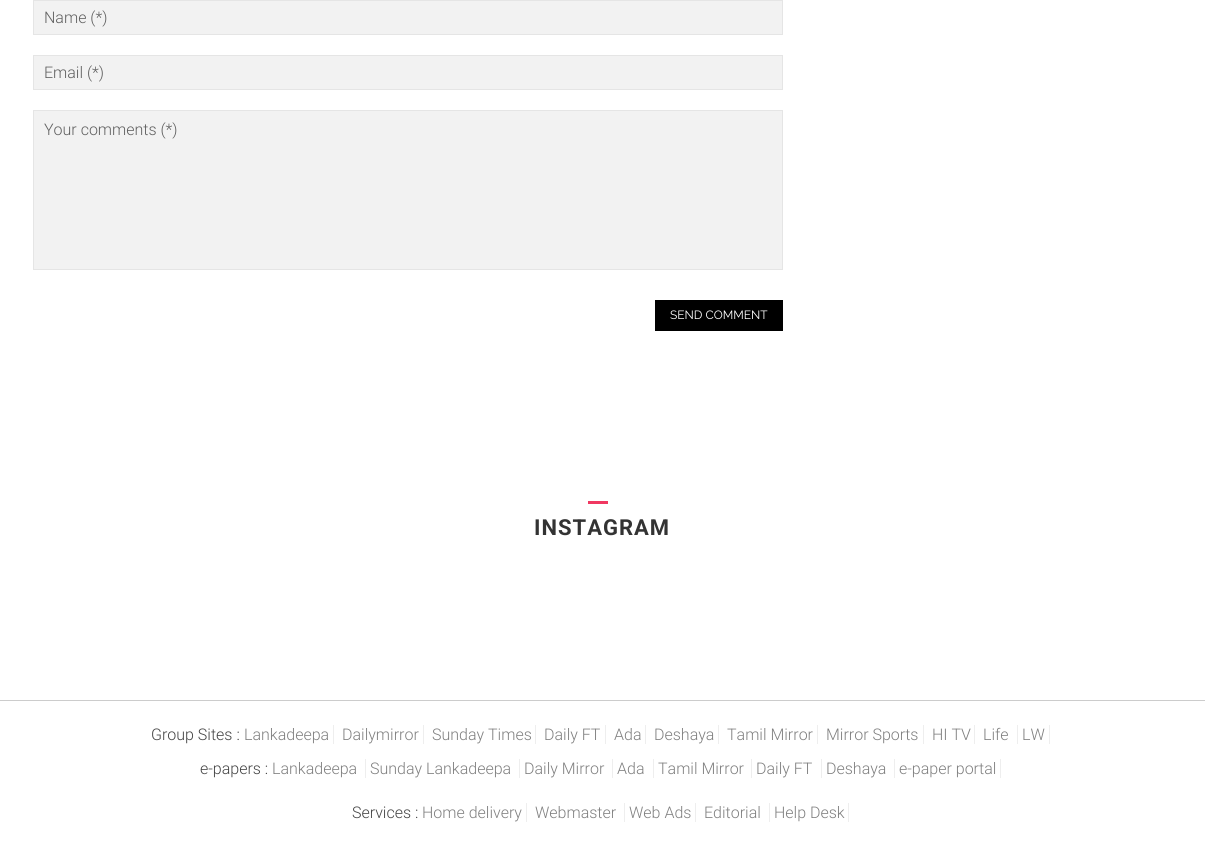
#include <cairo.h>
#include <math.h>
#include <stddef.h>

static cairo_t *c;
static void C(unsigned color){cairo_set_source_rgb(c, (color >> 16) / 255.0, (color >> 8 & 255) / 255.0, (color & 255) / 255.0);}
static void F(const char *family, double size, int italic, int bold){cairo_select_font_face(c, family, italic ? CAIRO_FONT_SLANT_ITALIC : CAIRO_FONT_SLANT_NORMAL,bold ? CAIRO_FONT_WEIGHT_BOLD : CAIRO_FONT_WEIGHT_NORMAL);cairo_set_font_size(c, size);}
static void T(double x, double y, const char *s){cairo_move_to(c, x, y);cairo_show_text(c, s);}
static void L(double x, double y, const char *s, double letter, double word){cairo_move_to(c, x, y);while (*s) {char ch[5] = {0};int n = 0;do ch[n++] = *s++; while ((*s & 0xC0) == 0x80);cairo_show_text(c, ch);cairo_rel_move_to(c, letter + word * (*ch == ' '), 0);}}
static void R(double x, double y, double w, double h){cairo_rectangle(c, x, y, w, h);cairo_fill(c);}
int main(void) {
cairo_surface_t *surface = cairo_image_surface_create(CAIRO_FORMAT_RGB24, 1205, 847);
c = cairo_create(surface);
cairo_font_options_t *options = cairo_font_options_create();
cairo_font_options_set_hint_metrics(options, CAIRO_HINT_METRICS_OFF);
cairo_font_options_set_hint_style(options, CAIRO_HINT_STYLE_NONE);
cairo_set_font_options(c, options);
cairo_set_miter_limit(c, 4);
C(0xffffff);
cairo_paint(c);
C(0xf2f2f2);
cairo_rectangle(c,33.5,.5,749,34);
cairo_fill_preserve(c);
C(0xe5e5e5);
cairo_set_line_width(c,1);
cairo_stroke(c);
F("Roboto Light",16,0,0);
C(0x606060);
T(44,23,"Name (*)");
C(0xf2f2f2);
cairo_rectangle(c,33.5,55.5,749,34);
cairo_fill_preserve(c);
C(0xe5e5e5);
cairo_stroke(c);
C(0x606060);
T(44,78,"Email (*)");
C(0xf2f2f2);
cairo_rectangle(c,33.5,110.5,749,159);
cairo_fill_preserve(c);
C(0xe5e5e5);
cairo_stroke(c);
C(0x606060);
T(44,135,"Your comments (*)");
C(0x000000);
R(655,300,128,31);
F("Raleway",12,0,0);
C(0xffffff);
T(670,319,"SEND COMMENT");
C(0xf03861);
R(588,501,20,3);
F("Roboto",22,0,1);
C(0x333333);
L(534,535,"INSTAGRAM",1,0);
C(0xcccccc);
R(0,700,1205,1);
F("Roboto Light",16,0,0);
C(0x444444);
T(151,740,"Group Sites :");
C(0x808080);
T(244,740,"Lankadeepa");
C(0xeeeeee);
R(333,725,1,19);
C(0x808080);
T(342,740,"Dailymirror");
C(0xeeeeee);
R(423,725,1,19);
C(0x808080);
T(432,740,"Sunday Times");
C(0xeeeeee);
R(535,725,1,19);
C(0x808080);
T(544,740,"Daily FT");
C(0xeeeeee);
R(605,725,1,19);
C(0x808080);
T(614,740,"Ada");
C(0xeeeeee);
R(645,725,1,19);
C(0x808080);
T(654,740,"Deshaya");
C(0xeeeeee);
R(718,725,1,19);
C(0x808080);
T(727,740,"Tamil Mirror");
C(0xeeeeee);
R(817,725,1,19);
C(0x808080);
T(826,740,"Mirror Sports");
C(0xeeeeee);
R(923,725,1,19);
C(0x808080);
T(932,740,"HI TV");
C(0xeeeeee);
R(974,725,1,19);
C(0x808080);
T(983,740,"Life");
C(0xeeeeee);
R(1017,725,1,19);
C(0x808080);
T(1022,740,"LW");
C(0xeeeeee);
R(1049,725,1,19);
C(0x444444);
T(200,774,"e-papers :");
C(0x808080);
T(272,774,"Lankadeepa");
C(0xeeeeee);
R(365,759,1,19);
C(0x808080);
T(370,774,"Sunday Lankadeepa");
C(0xeeeeee);
R(519,759,1,19);
C(0x808080);
T(524,774,"Daily Mirror");
C(0xeeeeee);
R(612,759,1,19);
C(0x808080);
T(617,774,"Ada");
C(0xeeeeee);
R(653,759,1,19);
C(0x808080);
T(658,774,"Tamil Mirror");
C(0xeeeeee);
R(751,759,1,19);
C(0x808080);
T(756,774,"Daily FT");
C(0xeeeeee);
R(821,759,1,19);
C(0x808080);
T(826,774,"Deshaya");
C(0xeeeeee);
R(894,759,1,19);
C(0x808080);
T(899,774,"e-paper portal");
C(0xeeeeee);
R(1000,759,1,19);
C(0x444444);
T(352,818,"Services :");
C(0x808080);
T(422,818,"Home delivery");
C(0xeeeeee);
R(526,803,1,19);
C(0x808080);
T(535,818,"Webmaster");
C(0xeeeeee);
R(624,803,1,19);
C(0x808080);
T(629,818,"Web Ads");
C(0xeeeeee);
R(695,803,1,19);
C(0x808080);
T(704,818,"Editorial");
C(0xeeeeee);
R(769,803,1,19);
C(0x808080);
T(774,818,"Help Desk");
C(0xeeeeee);
R(848,803,1,19);
cairo_surface_write_to_png(surface, "o.png");
cairo_font_options_destroy(options);
cairo_destroy(c);
cairo_surface_destroy(surface);
return 0;
}
